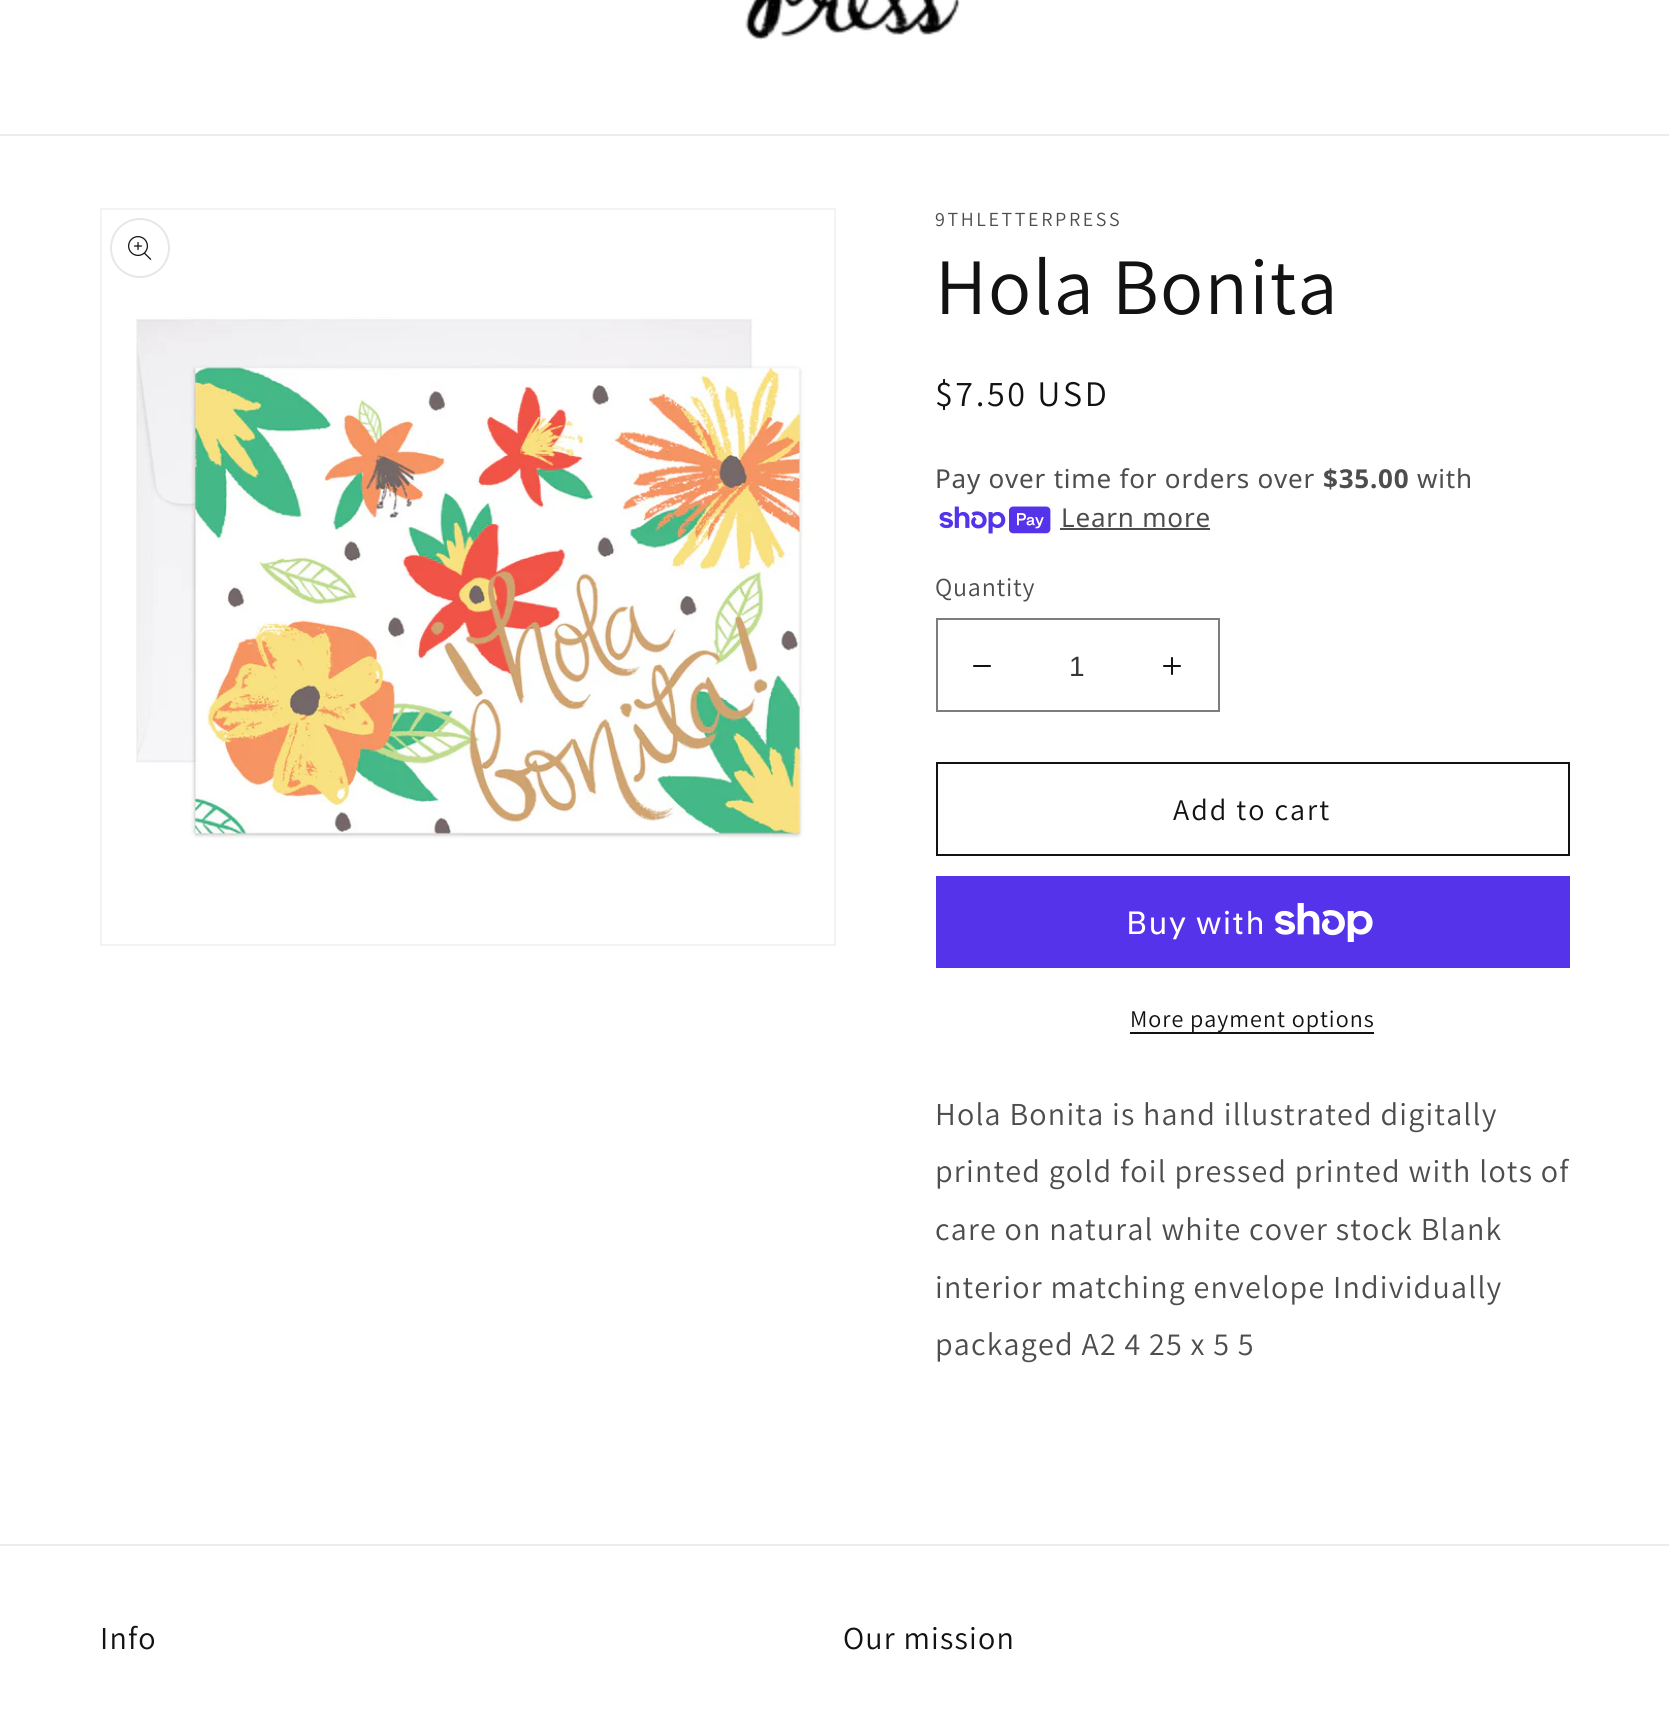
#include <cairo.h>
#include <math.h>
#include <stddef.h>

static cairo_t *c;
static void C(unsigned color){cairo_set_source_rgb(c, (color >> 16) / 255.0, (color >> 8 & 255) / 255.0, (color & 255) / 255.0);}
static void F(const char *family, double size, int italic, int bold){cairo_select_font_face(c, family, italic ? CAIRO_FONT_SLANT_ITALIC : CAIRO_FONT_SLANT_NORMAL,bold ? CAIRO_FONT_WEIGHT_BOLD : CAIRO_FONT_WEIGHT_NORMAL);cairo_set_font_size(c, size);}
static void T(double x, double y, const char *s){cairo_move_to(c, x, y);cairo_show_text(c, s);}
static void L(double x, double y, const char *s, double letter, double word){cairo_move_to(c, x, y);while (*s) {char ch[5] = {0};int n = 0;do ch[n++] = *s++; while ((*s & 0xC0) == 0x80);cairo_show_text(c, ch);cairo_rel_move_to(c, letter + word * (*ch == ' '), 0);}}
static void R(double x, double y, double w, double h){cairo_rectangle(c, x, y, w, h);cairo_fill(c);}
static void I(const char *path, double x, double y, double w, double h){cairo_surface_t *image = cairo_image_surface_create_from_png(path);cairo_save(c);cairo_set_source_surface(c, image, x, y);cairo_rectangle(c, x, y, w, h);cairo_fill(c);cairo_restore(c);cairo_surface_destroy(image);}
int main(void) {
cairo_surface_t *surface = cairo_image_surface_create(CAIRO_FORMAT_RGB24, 1669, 1728);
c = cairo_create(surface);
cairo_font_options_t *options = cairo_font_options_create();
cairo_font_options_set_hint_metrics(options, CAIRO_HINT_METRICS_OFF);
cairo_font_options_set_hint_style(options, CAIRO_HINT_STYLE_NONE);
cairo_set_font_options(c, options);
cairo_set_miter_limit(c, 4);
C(0xffffff);
cairo_paint(c);
C(0xececec);
R(0,134,1669,2);
I("1.png",745,0,215,40);
cairo_rectangle(c,101,209,734,736);
C(0xf3f3f3);
cairo_stroke(c);
I("2.png",136,317,671,522);
cairo_arc(c,140,248,29,0,2 * M_PI);
C(0xe7e7e7);
cairo_stroke(c);
I("3.png",128,236,24,24);
F("Assistant",20,0,0);
C(0x4d4d4d);
L(935,226,"9THLETTERPRESS",2.6,0);
F("Assistant",80,0,0);
C(0x121212);
L(935,314,"Hola Bonita",1.2,0);
F("Assistant",36,0,0);
L(935,406,"$7.50 USD",2.6,0);
F("Noto Sans",26,0,0);
C(0x4d4d4d);
L(935,488,"Pay over time for orders over",.8,0);
F("Noto Sans",26,0,1);
L(1323,488,"$35.00",.8,0);
F("Noto Sans",26,0,0);
L(1417,488,"with",.8,0);
I("4.png",939,506,112,28);
L(1061,527,"Learn more",.8,0);
R(1060,528,150,2);
F("Assistant",26,0,0);
L(935,596,"Quantity",.8,0);
I("5.png",973,665,18,2);
I("6.png",1163,657,18,18);
cairo_rectangle(c,937,619,282,92);
C(0x7d7d7d);
cairo_stroke(c);
F("Liberation Sans",28,0,0);
C(0x363636);
T(1069,676,"1");
cairo_rectangle(c,937,763,632,92);
C(0x121212);
cairo_stroke(c);
F("Assistant",30,0,0);
L(1173,820,"Add to cart",2,0);
C(0x5433eb);
R(936,876,634,92);
F("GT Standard",32,0,0);
C(0xffffff);
L(1126,934,"Buy with",1.2,0);
I("7.png",1275,903,98,39);
C(0x121212);
R(1130,1032,244,2);
F("Assistant",24,0,0);
L(1130,1027,"More payment options",1,0);
F("Assistant",32,0,0);
C(0x4d4d4d);
L(935,1125,"Hola Bonita is hand illustrated digitally",1.2,0);
L(935,1182,"printed gold foil pressed printed with lots of",1.2,0);
L(935,1240,"care on natural white cover stock Blank",1.2,0);
L(935,1298,"interior matching envelope Individually",1.2,0);
L(935,1355,"packaged A2 4 25 x 5 5",1.2,0);
C(0xececec);
R(0,1544,1669,2);
C(0x121212);
L(100,1649,"Info",1.2,0);
L(843,1649,"Our mission",1.2,0);
cairo_surface_write_to_png(surface, "o.png");
cairo_font_options_destroy(options);
cairo_destroy(c);
cairo_surface_destroy(surface);
return 0;
}
